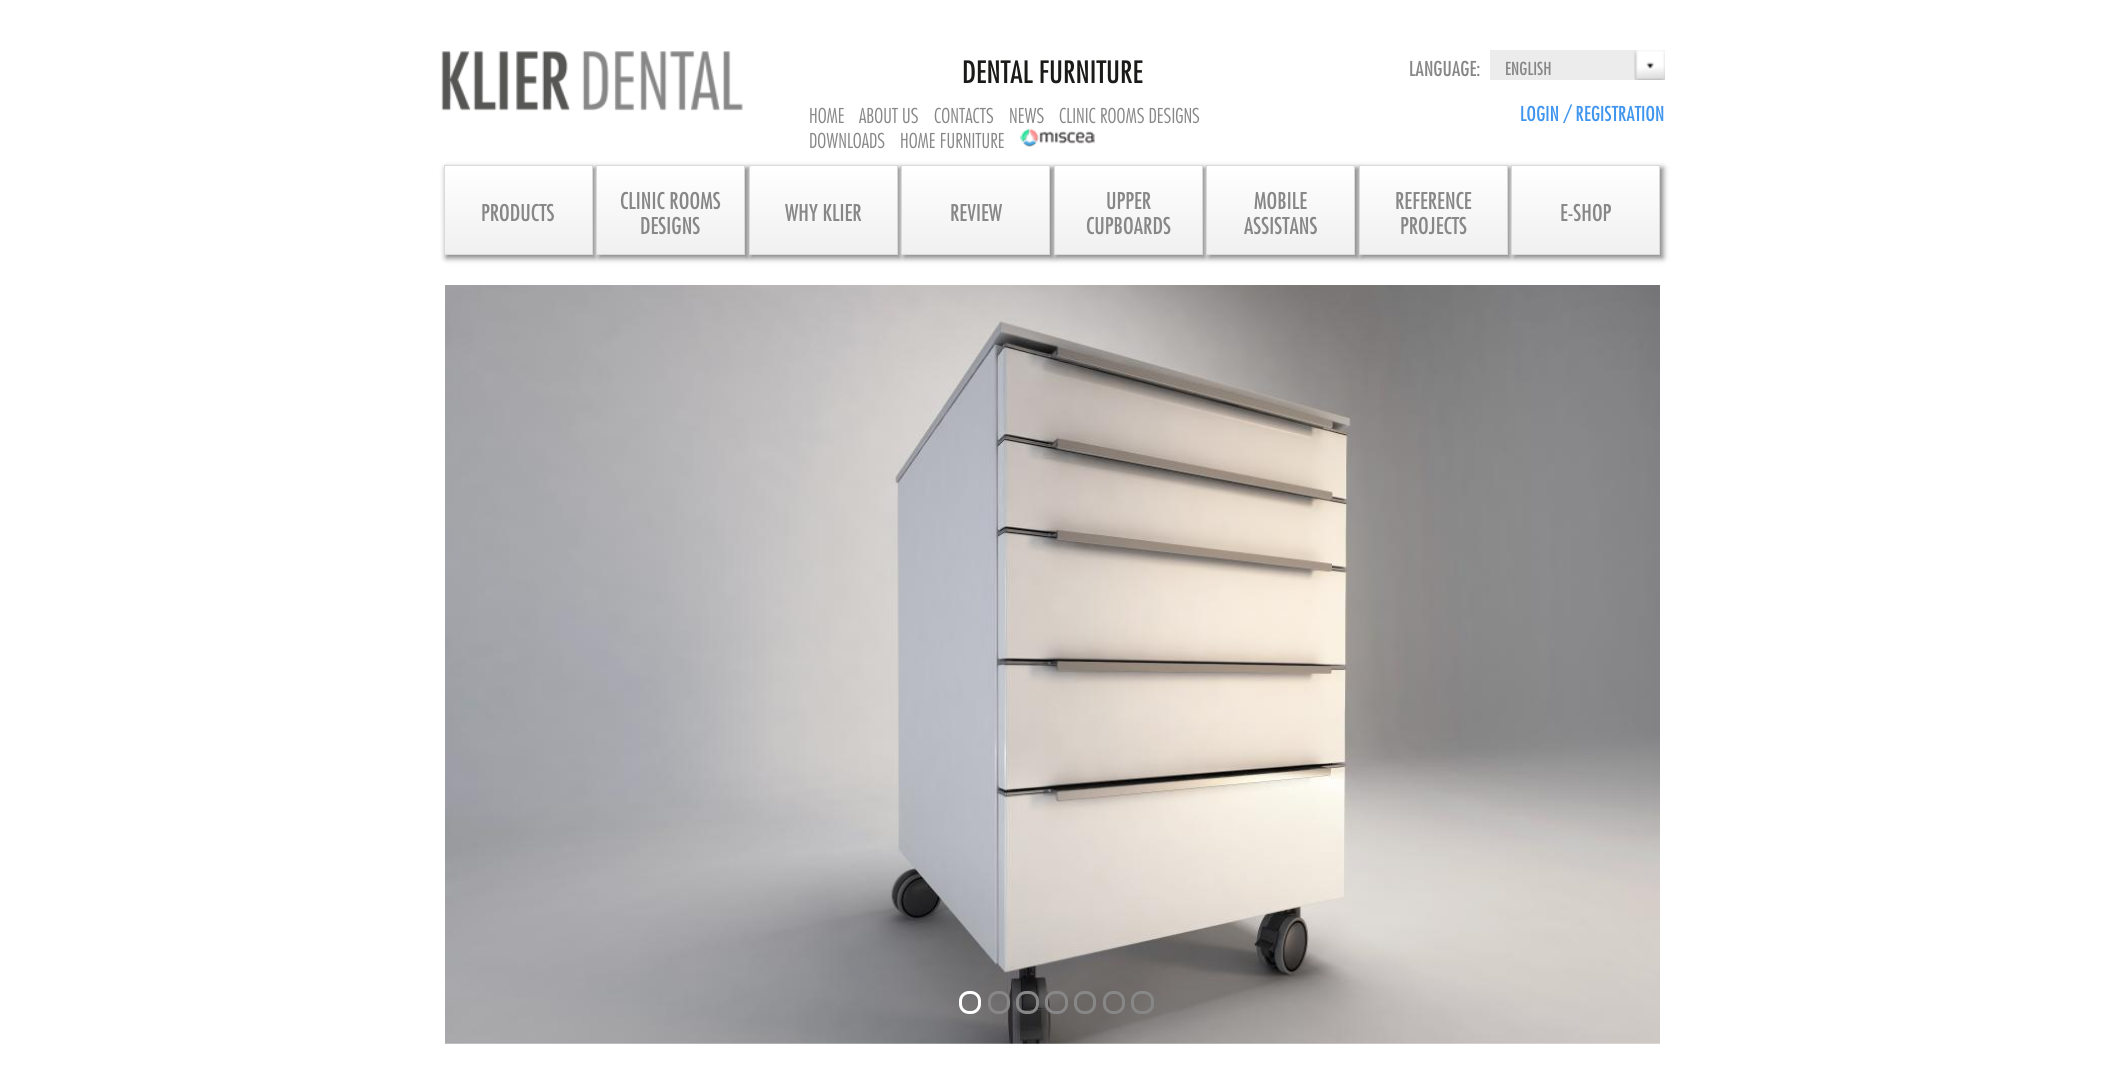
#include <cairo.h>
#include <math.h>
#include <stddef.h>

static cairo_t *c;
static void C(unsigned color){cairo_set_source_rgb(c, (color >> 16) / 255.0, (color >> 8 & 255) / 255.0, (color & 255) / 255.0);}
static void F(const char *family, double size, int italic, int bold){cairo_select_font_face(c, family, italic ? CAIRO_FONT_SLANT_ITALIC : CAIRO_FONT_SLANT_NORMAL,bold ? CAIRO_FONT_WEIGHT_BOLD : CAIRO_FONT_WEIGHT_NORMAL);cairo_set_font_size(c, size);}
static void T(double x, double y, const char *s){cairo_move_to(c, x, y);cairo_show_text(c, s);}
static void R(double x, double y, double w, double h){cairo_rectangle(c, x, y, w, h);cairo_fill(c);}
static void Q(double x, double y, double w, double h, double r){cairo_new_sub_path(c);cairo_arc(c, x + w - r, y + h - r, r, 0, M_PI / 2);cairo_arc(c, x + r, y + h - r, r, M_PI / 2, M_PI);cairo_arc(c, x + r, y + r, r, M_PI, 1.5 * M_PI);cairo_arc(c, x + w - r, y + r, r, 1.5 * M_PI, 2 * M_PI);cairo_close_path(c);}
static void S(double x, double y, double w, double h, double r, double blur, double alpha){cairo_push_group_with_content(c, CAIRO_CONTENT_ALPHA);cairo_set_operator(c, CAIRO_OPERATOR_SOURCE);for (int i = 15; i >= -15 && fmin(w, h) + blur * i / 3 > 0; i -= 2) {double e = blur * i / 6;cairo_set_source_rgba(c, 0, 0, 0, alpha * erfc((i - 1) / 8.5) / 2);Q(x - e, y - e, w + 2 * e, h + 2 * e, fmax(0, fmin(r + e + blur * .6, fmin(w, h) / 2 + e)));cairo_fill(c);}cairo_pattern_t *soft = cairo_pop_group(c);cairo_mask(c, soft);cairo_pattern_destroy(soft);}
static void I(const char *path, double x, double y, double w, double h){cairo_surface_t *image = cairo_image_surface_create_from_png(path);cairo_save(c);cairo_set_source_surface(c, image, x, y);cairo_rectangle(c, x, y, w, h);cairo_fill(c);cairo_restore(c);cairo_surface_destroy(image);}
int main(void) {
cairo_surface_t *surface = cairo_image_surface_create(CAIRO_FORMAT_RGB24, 2105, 1084);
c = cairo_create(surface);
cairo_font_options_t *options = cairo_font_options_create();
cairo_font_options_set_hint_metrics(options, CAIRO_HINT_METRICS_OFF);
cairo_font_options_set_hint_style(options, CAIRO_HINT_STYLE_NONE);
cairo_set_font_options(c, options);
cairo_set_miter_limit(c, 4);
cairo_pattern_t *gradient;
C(0xffffff);
cairo_paint(c);
I("1.png",441,51,302,60);
F("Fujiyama",30,0,0);
C(0x1a1a18);
T(962,83,"DENTAL FURNITURE");
F("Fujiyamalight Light",20,0,0);
C(0x868786);
T(809,123,"HOME");
T(859,123,"ABOUT US");
T(934,123,"CONTACTS");
T(1009,123,"NEWS");
T(1059,123,"CLINIC ROOMS DESIGNS");
T(809,148,"DOWNLOADS");
T(900,148,"HOME FURNITURE");
I("2.png",1020,128,75,19);
F("Fujiyama",20,0,0);
T(1409,76,"LANGUAGE:");
C(0xececec);
R(1490,50,144,30);
F("Fujiyama",17.5,0,0);
C(0x868786);
T(1505,75,"ENGLISH");
I("3.png",1634,50,31,30);
F("Fujiyama",20,0,0);
C(0x4096ee);
T(1520,121,"LOGIN / REGISTRATION");
C(0x000000);
S(446,168,149,90,0,3,.5);
gradient = cairo_pattern_create_linear(518,166,518,254);
cairo_pattern_add_color_stop_rgba(gradient,0,1,1,1,1);
cairo_pattern_add_color_stop_rgba(gradient,1,0.941,0.941,0.941,1);
cairo_set_source(c,gradient);
cairo_pattern_destroy(gradient);
R(445,166,147,88);
cairo_rectangle(c,444.5,165.5,148,89);
C(0xdadada);
cairo_set_line_width(c,1);
cairo_stroke(c);
F("Fujiyama",22.5,0,0);
C(0x868786);
T(481,221,"PRODUCTS");
C(0x000000);
S(599,168,149,90,0,3,.5);
gradient = cairo_pattern_create_linear(671,166,671,254);
cairo_pattern_add_color_stop_rgba(gradient,0,1,1,1,1);
cairo_pattern_add_color_stop_rgba(gradient,1,0.941,0.941,0.941,1);
cairo_set_source(c,gradient);
cairo_pattern_destroy(gradient);
R(597,166,147,88);
cairo_rectangle(c,596.5,165.5,148,89);
C(0xdadada);
cairo_stroke(c);
C(0x868786);
T(620,209,"CLINIC ROOMS");
T(640,234,"DESIGNS");
C(0x000000);
S(751,168,149,90,0,3,.5);
gradient = cairo_pattern_create_linear(823,166,823,254);
cairo_pattern_add_color_stop_rgba(gradient,0,1,1,1,1);
cairo_pattern_add_color_stop_rgba(gradient,1,0.941,0.941,0.941,1);
cairo_set_source(c,gradient);
cairo_pattern_destroy(gradient);
R(750,166,147,88);
cairo_rectangle(c,749.5,165.5,148,89);
C(0xdadada);
cairo_stroke(c);
C(0x868786);
T(785,221,"WHY KLIER");
C(0x000000);
S(904,168,149,90,0,3,.5);
gradient = cairo_pattern_create_linear(976,166,976,254);
cairo_pattern_add_color_stop_rgba(gradient,0,1,1,1,1);
cairo_pattern_add_color_stop_rgba(gradient,1,0.941,0.941,0.941,1);
cairo_set_source(c,gradient);
cairo_pattern_destroy(gradient);
R(902,166,147,88);
cairo_rectangle(c,901.5,165.5,148,89);
C(0xdadada);
cairo_stroke(c);
C(0x868786);
T(950,221,"REVIEW");
C(0x000000);
S(1056,168,149,90,0,3,.5);
gradient = cairo_pattern_create_linear(1128,166,1128,254);
cairo_pattern_add_color_stop_rgba(gradient,0,1,1,1,1);
cairo_pattern_add_color_stop_rgba(gradient,1,0.941,0.941,0.941,1);
cairo_set_source(c,gradient);
cairo_pattern_destroy(gradient);
R(1055,166,147,88);
cairo_rectangle(c,1054.5,165.5,148,89);
C(0xdadada);
cairo_stroke(c);
C(0x868786);
T(1106,209,"UPPER");
T(1086,234,"CUPBOARDS");
C(0x000000);
S(1209,168,149,90,0,3,.5);
gradient = cairo_pattern_create_linear(1281,166,1281,254);
cairo_pattern_add_color_stop_rgba(gradient,0,1,1,1,1);
cairo_pattern_add_color_stop_rgba(gradient,1,0.941,0.941,0.941,1);
cairo_set_source(c,gradient);
cairo_pattern_destroy(gradient);
R(1207,166,147,88);
cairo_rectangle(c,1206.5,165.5,148,89);
C(0xdadada);
cairo_stroke(c);
C(0x868786);
T(1254,209,"MOBILE");
T(1244,234,"ASSISTANS");
C(0x000000);
S(1361,168,149,90,0,3,.5);
gradient = cairo_pattern_create_linear(1433,166,1433,254);
cairo_pattern_add_color_stop_rgba(gradient,0,1,1,1,1);
cairo_pattern_add_color_stop_rgba(gradient,1,0.941,0.941,0.941,1);
cairo_set_source(c,gradient);
cairo_pattern_destroy(gradient);
R(1360,166,147,88);
cairo_rectangle(c,1359.5,165.5,148,89);
C(0xdadada);
cairo_stroke(c);
C(0x868786);
T(1395,209,"REFERENCE");
T(1400,234,"PROJECTS");
C(0x000000);
S(1514,168,149,90,0,3,.5);
gradient = cairo_pattern_create_linear(1586,166,1586,254);
cairo_pattern_add_color_stop_rgba(gradient,0,1,1,1,1);
cairo_pattern_add_color_stop_rgba(gradient,1,0.941,0.941,0.941,1);
cairo_set_source(c,gradient);
cairo_pattern_destroy(gradient);
R(1512,166,147,88);
cairo_rectangle(c,1511.5,165.5,148,89);
C(0xdadada);
cairo_stroke(c);
C(0x868786);
T(1560,221,"E-SHOP");
I("4.png",445,285,1215,759);
Q(960.5,992.5,19,20,8.5);
C(0xffffff);
cairo_set_line_width(c,3);
cairo_stroke(c);
Q(989.5,992.5,19,20,8.5);
C(0x868786);
cairo_stroke(c);
Q(1017.5,992.5,20,20,8.5);
cairo_stroke(c);
Q(1046.5,992.5,20,20,8.5);
cairo_stroke(c);
Q(1075.5,992.5,19,20,8.5);
cairo_stroke(c);
Q(1104.5,992.5,19,20,8.5);
cairo_stroke(c);
Q(1132.5,992.5,20,20,8.5);
cairo_stroke(c);
cairo_surface_write_to_png(surface, "o.png");
cairo_font_options_destroy(options);
cairo_destroy(c);
cairo_surface_destroy(surface);
return 0;
}
